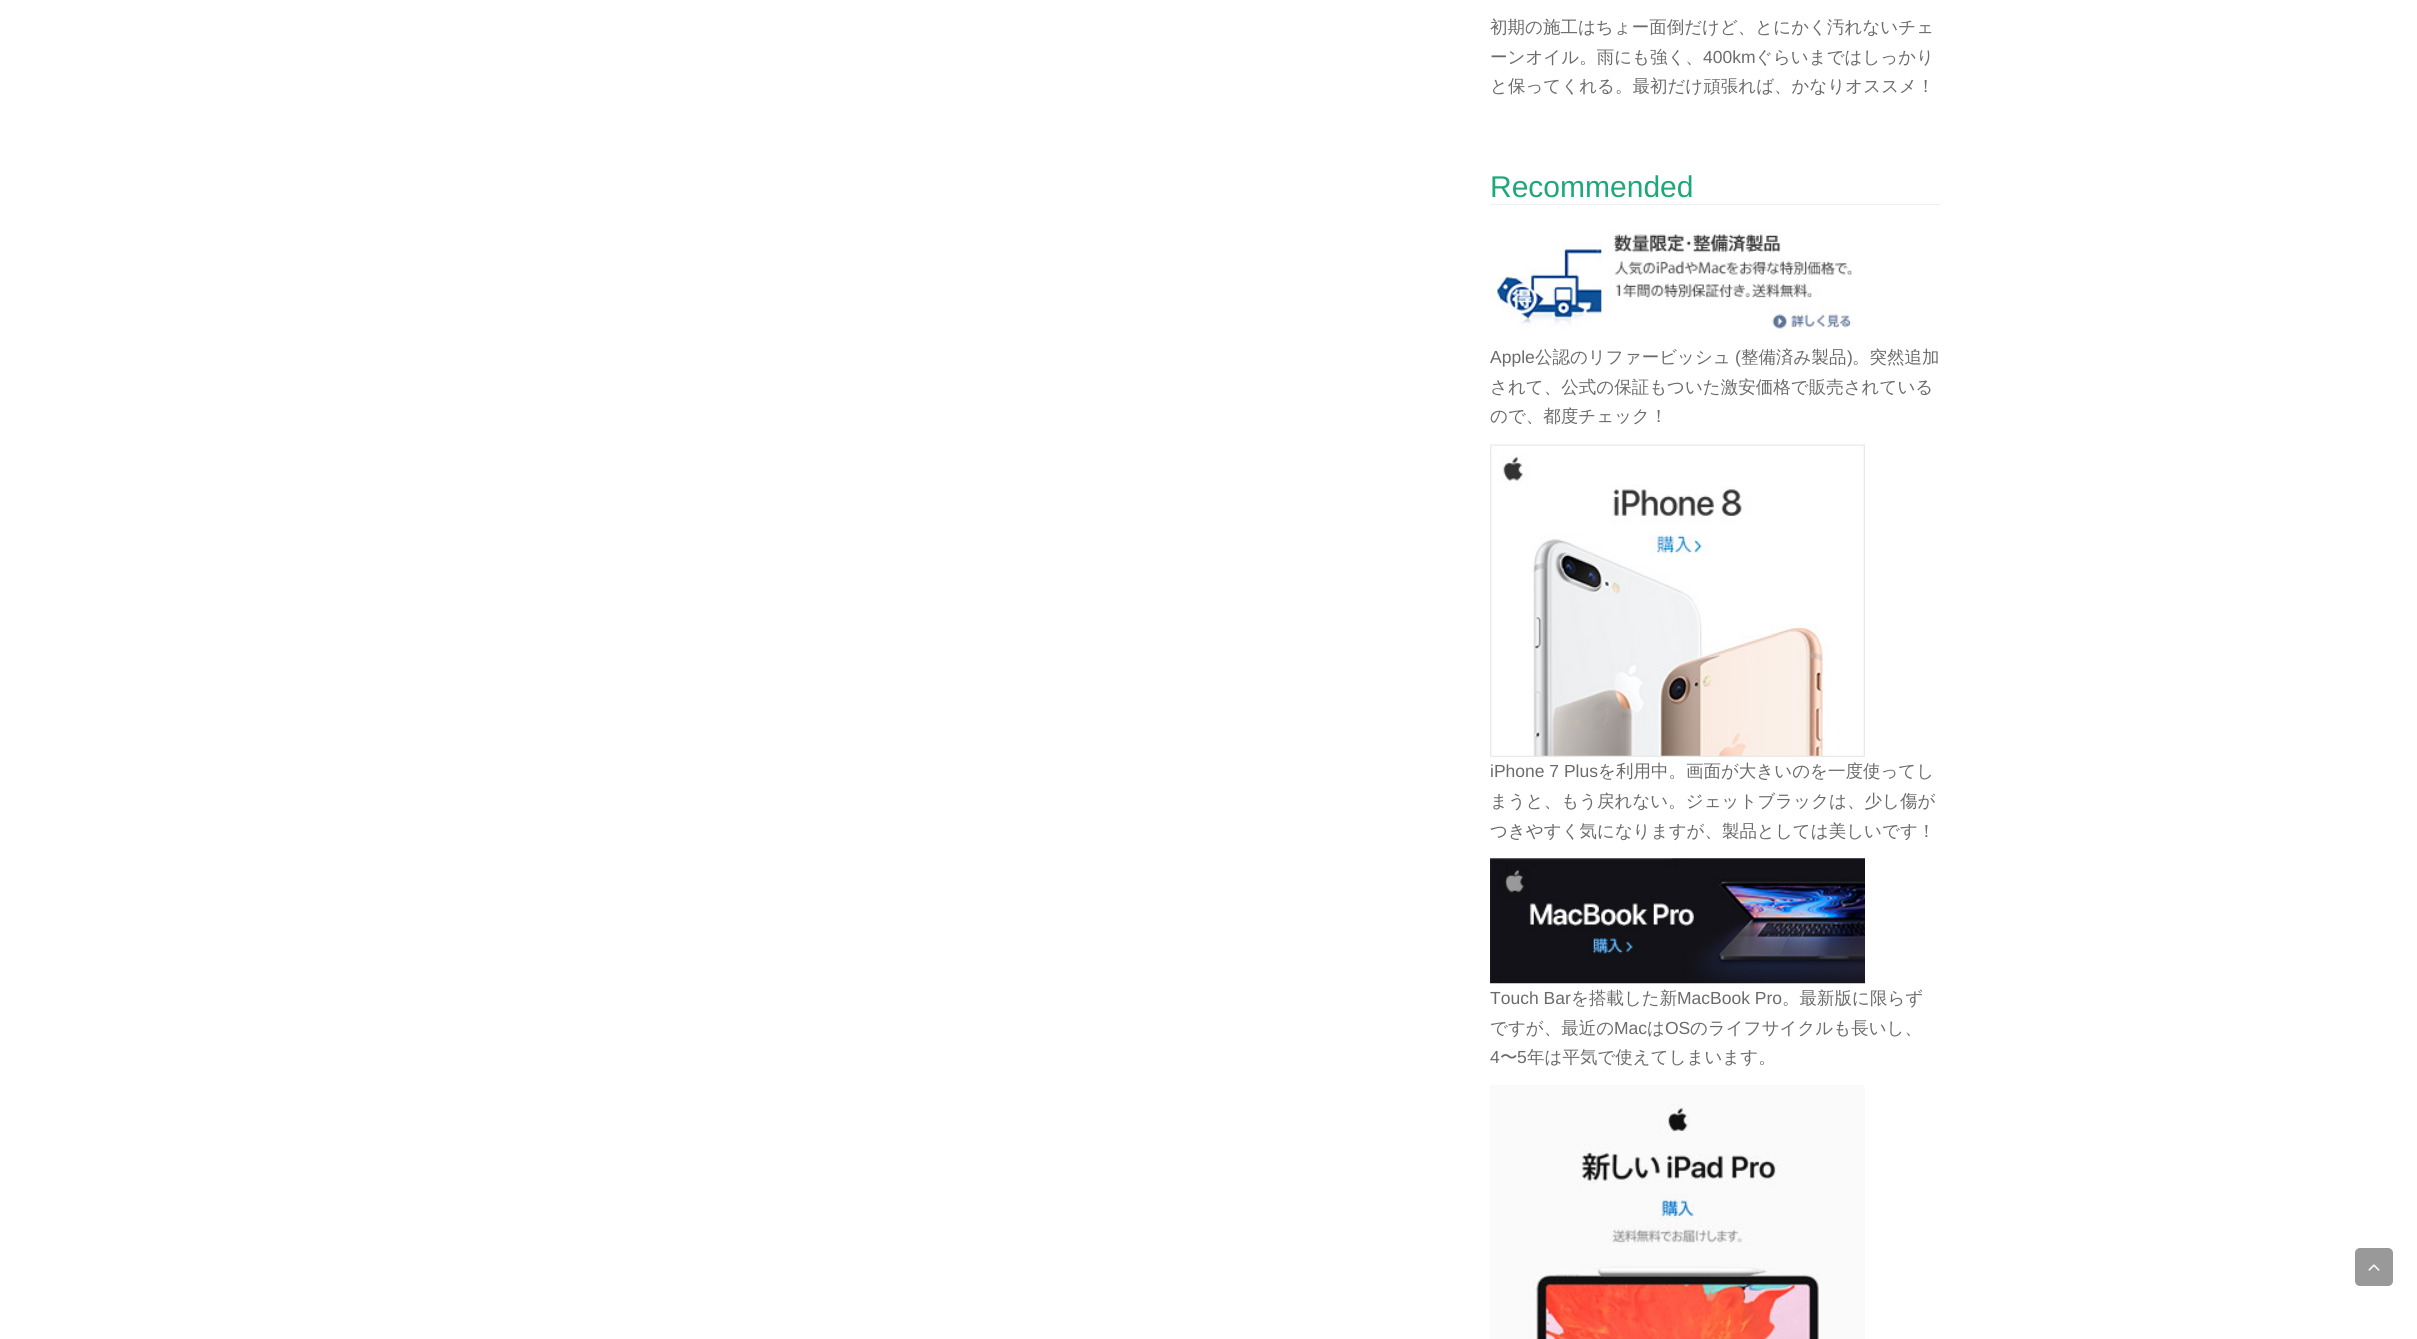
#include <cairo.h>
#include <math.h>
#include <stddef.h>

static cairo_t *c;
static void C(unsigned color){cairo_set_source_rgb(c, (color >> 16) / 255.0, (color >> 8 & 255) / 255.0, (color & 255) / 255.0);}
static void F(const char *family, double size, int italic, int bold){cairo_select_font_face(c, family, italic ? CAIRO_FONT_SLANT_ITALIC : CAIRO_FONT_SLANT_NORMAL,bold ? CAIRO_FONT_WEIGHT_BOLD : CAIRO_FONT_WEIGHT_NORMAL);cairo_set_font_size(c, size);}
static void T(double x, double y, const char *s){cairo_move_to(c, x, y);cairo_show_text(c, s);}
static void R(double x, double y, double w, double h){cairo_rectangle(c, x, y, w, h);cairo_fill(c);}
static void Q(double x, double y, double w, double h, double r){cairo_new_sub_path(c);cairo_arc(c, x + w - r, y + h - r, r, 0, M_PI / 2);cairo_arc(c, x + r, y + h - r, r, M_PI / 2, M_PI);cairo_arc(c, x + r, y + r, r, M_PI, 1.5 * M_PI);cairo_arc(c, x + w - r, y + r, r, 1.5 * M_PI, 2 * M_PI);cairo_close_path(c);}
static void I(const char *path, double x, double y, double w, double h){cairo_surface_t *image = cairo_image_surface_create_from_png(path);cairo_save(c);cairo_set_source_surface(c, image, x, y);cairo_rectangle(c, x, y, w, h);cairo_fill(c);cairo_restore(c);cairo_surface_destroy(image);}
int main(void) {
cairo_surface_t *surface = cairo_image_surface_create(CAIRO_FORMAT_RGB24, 2417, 1339);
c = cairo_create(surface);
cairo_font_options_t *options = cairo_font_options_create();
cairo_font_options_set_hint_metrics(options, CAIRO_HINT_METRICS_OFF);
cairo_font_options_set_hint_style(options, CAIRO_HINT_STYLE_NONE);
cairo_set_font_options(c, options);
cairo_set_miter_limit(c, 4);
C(0xffffff);
cairo_paint(c);
F("WenQuanYi Zen Hei Medium",17.5,0,0);
C(0x6b6b6b);
T(1490,33,"初期の施工はちょー面倒だけど、とにかく汚れないチェ");
T(1490,63,"ーンオイル。雨にも強く、");
F("Liberation Sans",17.5,0,0);
T(1703,63,"400km");
F("WenQuanYi Zen Hei Medium",17.5,0,0);
T(1755,63,"ぐらいまではしっかり");
T(1490,92,"と保ってくれる。最初だけ頑張れば、かなりオススメ！");
C(0xeeeeee);
R(1490,204,450,1);
F("Liberation Sans",30,0,0);
C(0x1fa67a);
T(1490,197,"Recommended");
I("1.png",1490,231,362,102);
F("Liberation Sans",17.5,0,0);
C(0x6b6b6b);
T(1490,363,"Apple");
F("WenQuanYi Zen Hei Medium",17.5,0,0);
T(1535,363,"公認のリファービッシュ");
F("Liberation Sans",17.5,0,0);
T(1735,363,"(");
F("WenQuanYi Zen Hei Medium",17.5,0,0);
T(1741,363,"整備済み製品");
F("Liberation Sans",17.5,0,0);
T(1847,363,")");
F("WenQuanYi Zen Hei Medium",17.5,0,0);
T(1852,363,"。突然追加");
T(1490,393,"されて、公式の保証もついた激安価格で販売されている");
T(1490,422,"ので、都度チェック！");
I("2.png",1490,444,375,313);
F("Liberation Sans",17.5,0,0);
T(1490,777,"iPhone 7 Plus");
F("WenQuanYi Zen Hei Medium",17.5,0,0);
T(1598,777,"を利用中。画面が大きいのを一度使ってし");
T(1490,807,"まうと、もう戻れない。ジェットブラックは、少し傷が");
T(1490,837,"つきやすく気になりますが、製品としては美しいです！");
I("3.png",1490,858,375,126);
F("Liberation Sans",17.5,0,0);
T(1490,1004,"Touch Bar");
F("WenQuanYi Zen Hei Medium",17.5,0,0);
T(1571,1004,"を搭載した新");
F("Liberation Sans",17.5,0,0);
T(1677,1004,"MacBook Pro");
F("WenQuanYi Zen Hei Medium",17.5,0,0);
T(1782,1004,"。最新版に限らず");
T(1490,1034,"ですが、最近の");
F("Liberation Sans",17.5,0,0);
T(1614,1034,"Mac");
F("WenQuanYi Zen Hei Medium",17.5,0,0);
T(1647,1034,"は");
F("Liberation Sans",17.5,0,0);
T(1665,1034,"OS");
F("WenQuanYi Zen Hei Medium",17.5,0,0);
T(1690,1034,"のライフサイクルも長いし、");
F("Liberation Sans",17.5,0,0);
T(1490,1063,"4");
F("WenQuanYi Zen Hei Medium",17.5,0,0);
T(1500,1063,"〜");
F("Liberation Sans",17.5,0,0);
T(1517,1063,"5");
F("WenQuanYi Zen Hei Medium",17.5,0,0);
T(1527,1063,"年は平気で使えてしまいます。");
I("4.png",1490,1085,375,254);
C(0x999999);
Q(2355,1248,38,38,5);
cairo_fill(c);
I("5.png",2368,1264,12,7);
cairo_surface_write_to_png(surface, "o.png");
cairo_font_options_destroy(options);
cairo_destroy(c);
cairo_surface_destroy(surface);
return 0;
}
